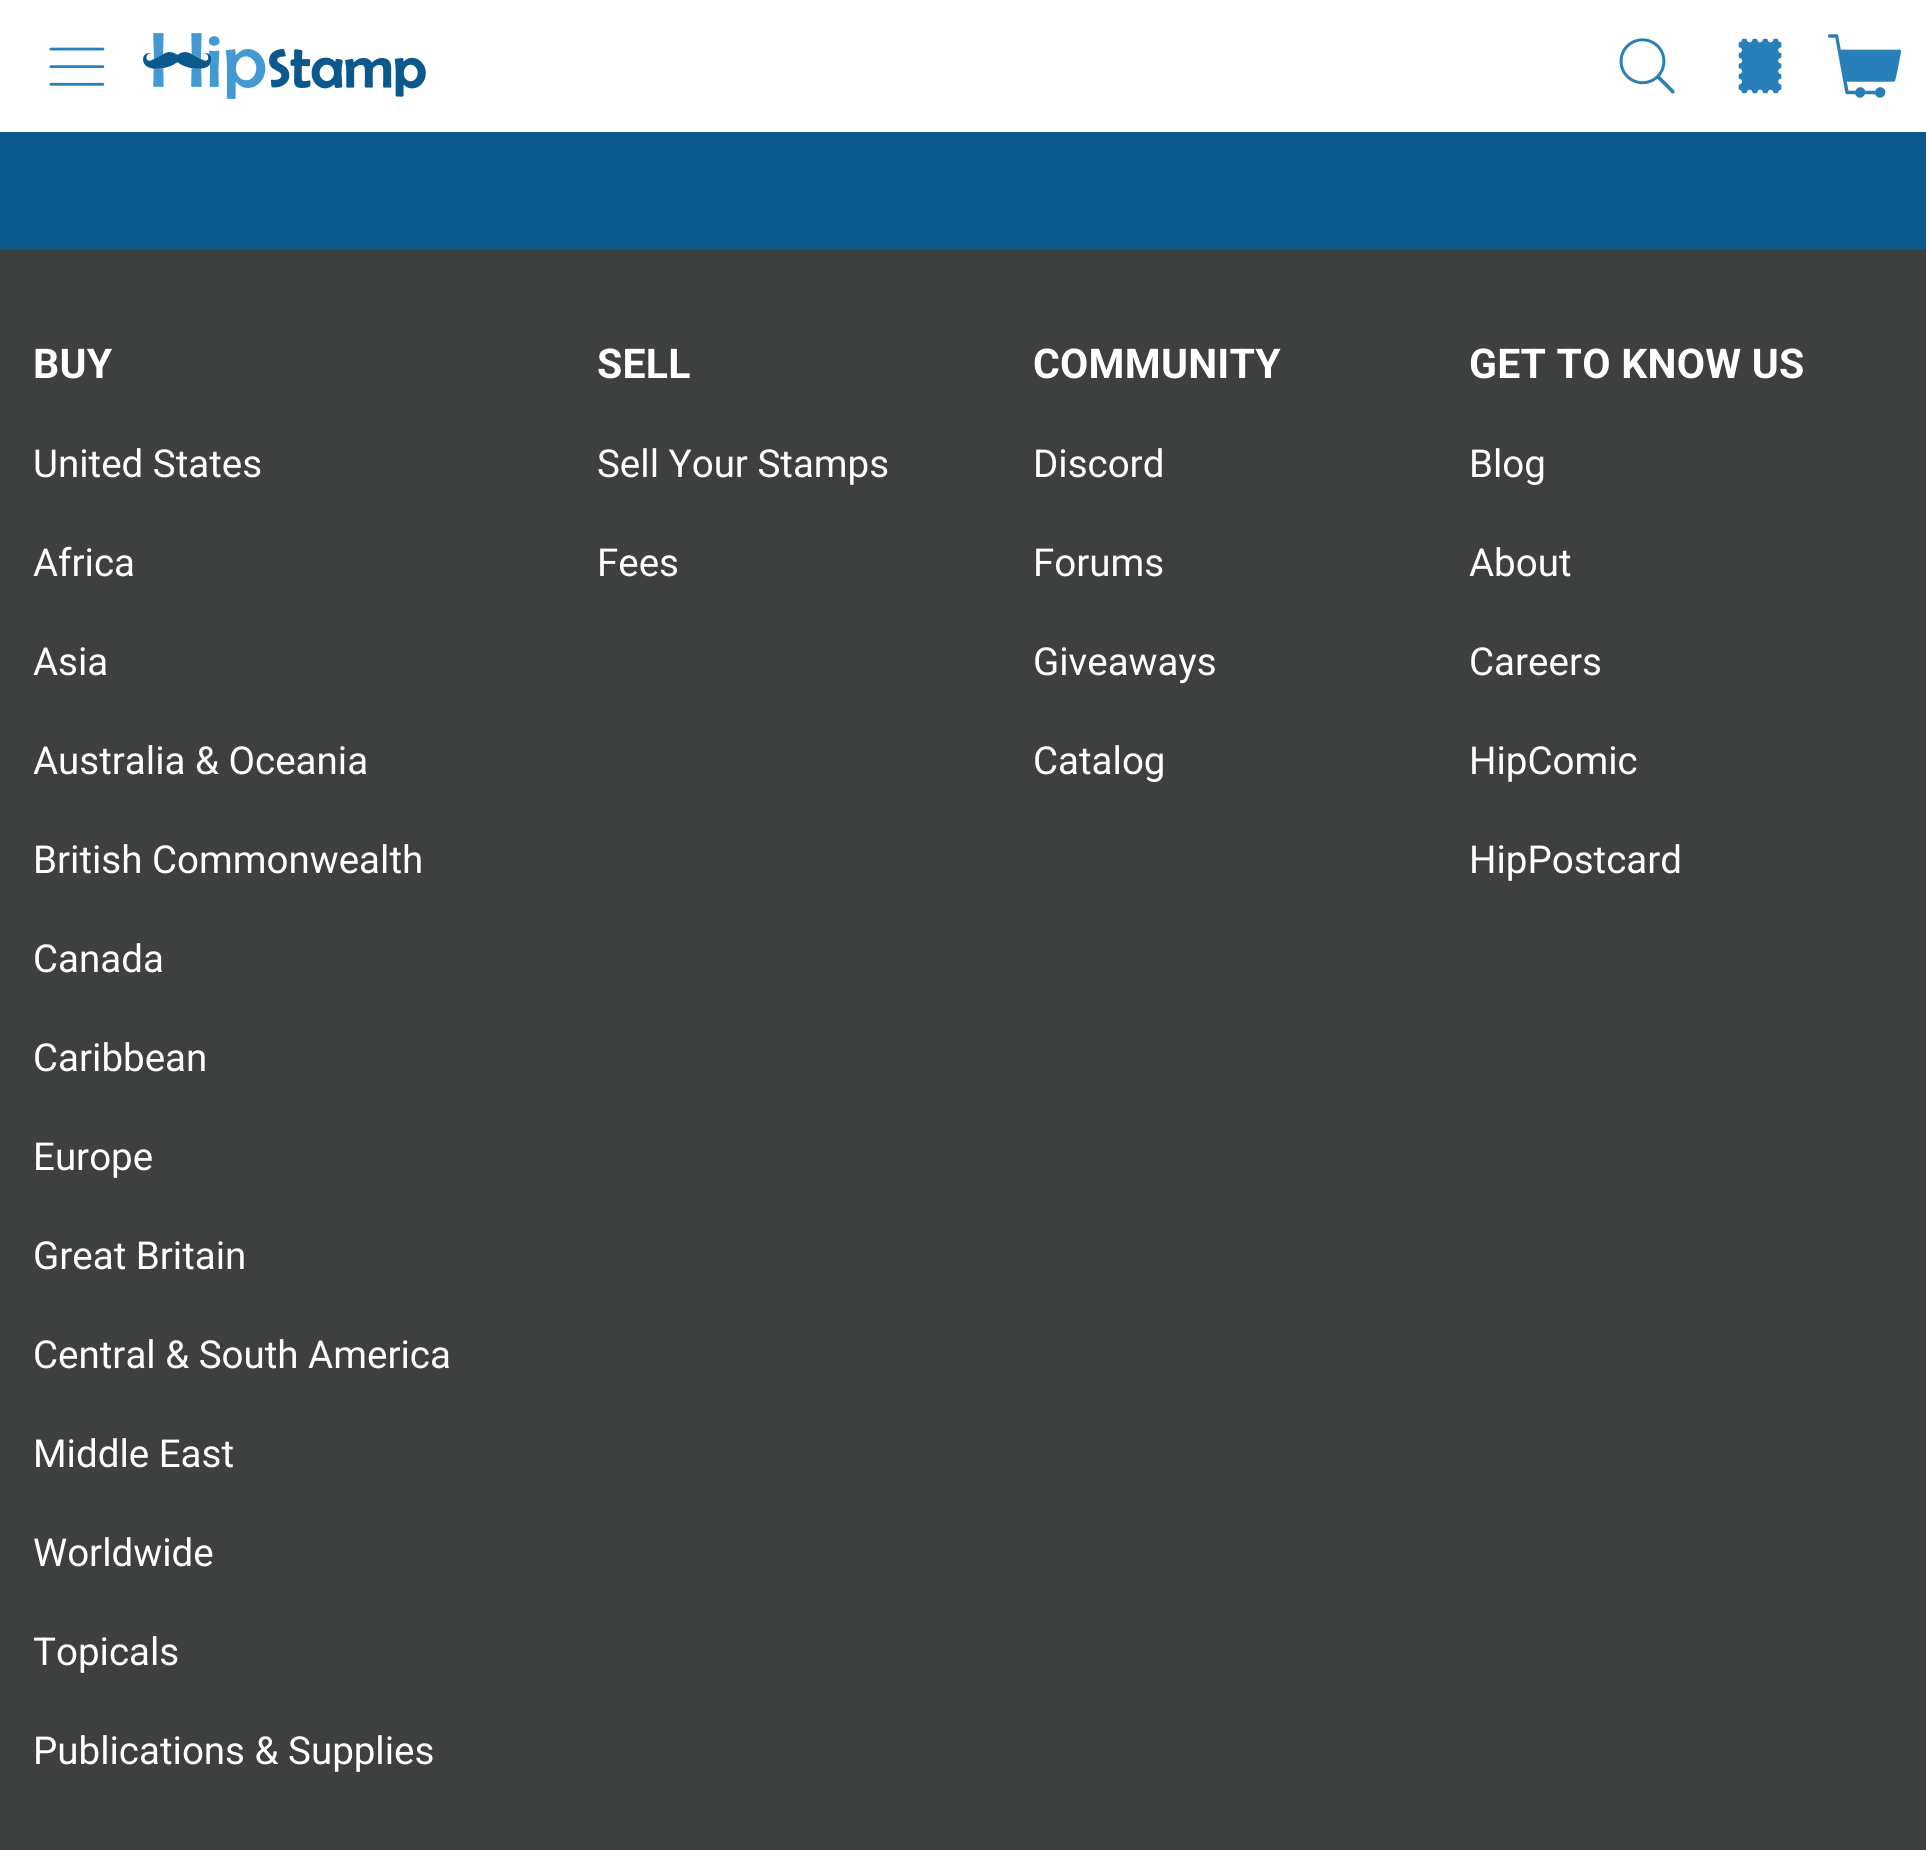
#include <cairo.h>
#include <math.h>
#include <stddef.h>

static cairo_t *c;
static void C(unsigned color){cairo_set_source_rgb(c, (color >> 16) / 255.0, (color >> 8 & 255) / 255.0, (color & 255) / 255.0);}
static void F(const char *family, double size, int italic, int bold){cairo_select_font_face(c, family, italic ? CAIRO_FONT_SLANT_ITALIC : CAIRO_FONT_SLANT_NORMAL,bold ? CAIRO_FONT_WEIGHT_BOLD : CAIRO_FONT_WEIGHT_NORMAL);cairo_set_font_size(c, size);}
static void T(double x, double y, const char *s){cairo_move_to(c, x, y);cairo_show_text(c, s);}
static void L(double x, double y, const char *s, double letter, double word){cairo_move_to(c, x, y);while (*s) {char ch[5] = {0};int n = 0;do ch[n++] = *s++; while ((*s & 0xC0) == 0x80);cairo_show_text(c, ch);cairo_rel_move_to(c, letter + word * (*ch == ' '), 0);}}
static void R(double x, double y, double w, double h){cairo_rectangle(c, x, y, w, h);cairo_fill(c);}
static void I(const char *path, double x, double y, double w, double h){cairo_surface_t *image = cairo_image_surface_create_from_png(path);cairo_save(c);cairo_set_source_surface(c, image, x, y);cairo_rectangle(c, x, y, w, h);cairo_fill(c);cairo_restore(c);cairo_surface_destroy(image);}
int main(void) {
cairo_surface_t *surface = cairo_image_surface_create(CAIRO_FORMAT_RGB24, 1926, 1850);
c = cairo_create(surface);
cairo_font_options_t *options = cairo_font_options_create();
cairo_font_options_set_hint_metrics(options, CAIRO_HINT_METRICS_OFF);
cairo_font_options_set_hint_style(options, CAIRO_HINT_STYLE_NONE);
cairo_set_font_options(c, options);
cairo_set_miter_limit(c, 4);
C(0x0b588d);
cairo_paint(c);
C(0xffffff);
R(0,0,1926,132);
I("1.png",49,47,56,39);
I("2.png",143,33,283,66);
I("3.png",1619,38,56,56);
I("4.png",1738,38,44,56);
I("5.png",1827,34,75,64);
C(0x3e403f);
R(0,250,1926,1600);
F("Roboto",41,0,1);
C(0xffffff);
L(33,378,"BUY",.25,0);
F("Roboto",38.5,0,0);
T(33,477,"United States");
T(33,576,"Africa");
T(33,675,"Asia");
T(33,774,"Australia & Oceania");
T(33,873,"British Commonwealth");
T(33,972,"Canada");
T(33,1071,"Caribbean");
T(33,1170,"Europe");
T(33,1269,"Great Britain");
T(33,1368,"Central & South America");
T(33,1467,"Middle East");
T(33,1566,"Worldwide");
T(33,1665,"Topicals");
T(33,1764,"Publications & Supplies");
F("Roboto",41,0,1);
L(597,378,"SELL",.25,0);
F("Roboto",38.5,0,0);
T(597,477,"Sell Your Stamps");
T(597,576,"Fees");
F("Roboto",41,0,1);
L(1033,378,"COMMUNITY",.25,0);
F("Roboto",38.5,0,0);
T(1033,477,"Discord");
T(1033,576,"Forums");
T(1033,675,"Giveaways");
T(1033,774,"Catalog");
F("Roboto",41,0,1);
L(1469,378,"GET TO KNOW US",.25,0);
F("Roboto",38.5,0,0);
T(1469,477,"Blog");
T(1469,576,"About");
T(1469,675,"Careers");
T(1469,774,"HipComic");
T(1469,873,"HipPostcard");
cairo_surface_write_to_png(surface, "o.png");
cairo_font_options_destroy(options);
cairo_destroy(c);
cairo_surface_destroy(surface);
return 0;
}
